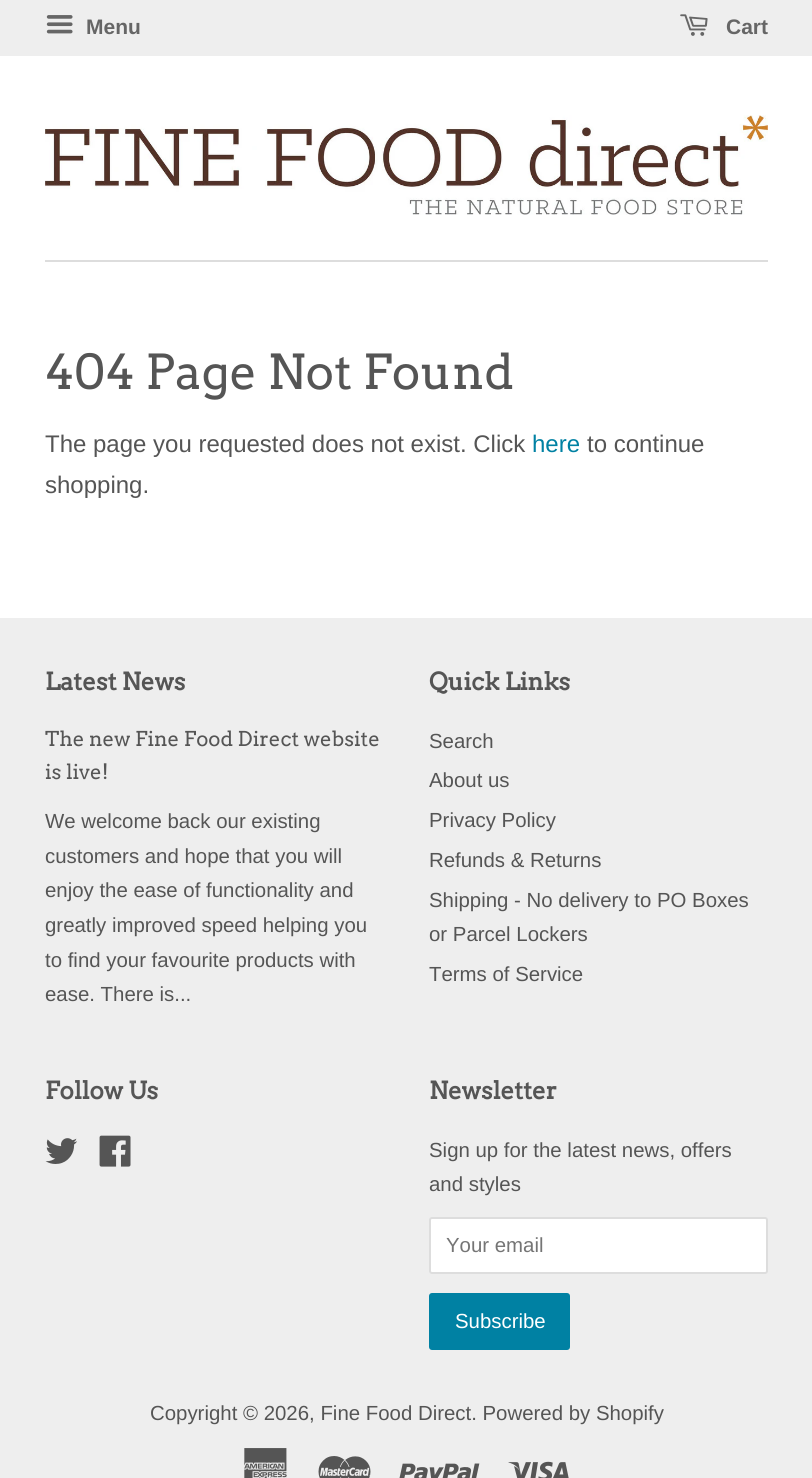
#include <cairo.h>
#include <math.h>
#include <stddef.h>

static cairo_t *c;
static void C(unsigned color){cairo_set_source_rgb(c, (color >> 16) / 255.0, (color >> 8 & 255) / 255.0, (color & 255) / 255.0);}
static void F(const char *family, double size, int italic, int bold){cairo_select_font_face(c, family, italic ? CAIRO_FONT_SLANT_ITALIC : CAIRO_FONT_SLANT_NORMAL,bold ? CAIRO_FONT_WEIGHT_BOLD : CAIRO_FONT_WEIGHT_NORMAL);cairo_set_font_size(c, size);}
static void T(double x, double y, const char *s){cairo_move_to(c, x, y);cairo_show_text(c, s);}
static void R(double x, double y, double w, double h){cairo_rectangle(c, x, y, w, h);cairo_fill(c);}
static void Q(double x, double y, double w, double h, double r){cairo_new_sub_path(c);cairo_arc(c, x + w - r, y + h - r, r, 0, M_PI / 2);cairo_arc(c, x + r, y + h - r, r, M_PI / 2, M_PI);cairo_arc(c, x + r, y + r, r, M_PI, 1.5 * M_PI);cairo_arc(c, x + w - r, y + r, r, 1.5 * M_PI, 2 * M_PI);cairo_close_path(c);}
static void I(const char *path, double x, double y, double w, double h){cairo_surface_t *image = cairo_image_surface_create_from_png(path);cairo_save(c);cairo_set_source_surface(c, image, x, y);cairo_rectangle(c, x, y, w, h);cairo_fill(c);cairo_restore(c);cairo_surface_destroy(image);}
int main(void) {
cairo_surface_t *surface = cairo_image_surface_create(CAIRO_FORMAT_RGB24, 812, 1478);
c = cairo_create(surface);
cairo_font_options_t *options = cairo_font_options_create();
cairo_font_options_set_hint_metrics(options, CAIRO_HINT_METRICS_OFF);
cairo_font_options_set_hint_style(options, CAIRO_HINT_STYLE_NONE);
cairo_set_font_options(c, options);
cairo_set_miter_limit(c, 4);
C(0xffffff);
cairo_paint(c);
C(0xeeeeee);
R(0,0,812,56);
I("1.png",46,15,27,19);
F("Liberation Sans",21,0,1);
C(0x666666);
T(86,34,"Menu");
I("2.png",680,14,28,22);
T(726,34,"Cart");
C(0xdddddd);
R(45,260,723,2);
I("3.png",45,115,723,100);
F("Arvo",48,0,0);
C(0x555555);
T(45,389,"404 Page Not Found");
F("Liberation Sans",24,0,0);
T(45,452,"The page you requested does not exist. Click");
C(0x0081a3);
T(532,452,"here");
C(0x555555);
T(587,452,"to continue");
T(45,493,"shopping.");
C(0xeeeeee);
R(0,618,812,860);
F("Arvo",24,0,1);
C(0x555555);
T(45,690,"Latest News");
F("Arvo",20.4,0,0);
T(45,746,"The new Fine Food Direct website");
T(45,779,"is live!");
F("Liberation Sans",20.4,0,0);
T(45,828,"We welcome back our existing");
T(45,863,"customers and hope that you will");
T(45,897,"enjoy the ease of functionality and");
T(45,932,"greatly improved speed helping you");
T(45,967,"to find your favourite products with");
T(45,1001,"ease. There is...");
F("Arvo",24,0,1);
T(429,690,"Quick Links");
F("Liberation Sans",20.4,0,0);
T(429,748,"Search");
T(429,787,"About us");
T(429,827,"Privacy Policy");
T(429,867,"Refunds & Returns");
T(429,907,"Shipping - No delivery to PO Boxes");
T(429,941,"or Parcel Lockers");
T(429,981,"Terms of Service");
F("Arvo",24,0,1);
T(45,1099,"Follow Us");
I("4.png",45,1138,32,26);
I("5.png",99,1135,32,32);
T(429,1099,"Newsletter");
F("Liberation Sans",20.4,0,0);
T(429,1157,"Sign up for the latest news, offers");
T(429,1191,"and styles");
C(0xffffff);
Q(430,1218,337,55,2);
cairo_fill_preserve(c);
C(0xdddddd);
cairo_stroke(c);
C(0x757575);
T(446,1252,"Your email");
C(0x0081a3);
Q(429,1293,141,57,3);
cairo_fill(c);
C(0xffffff);
T(455,1328,"Subscribe");
C(0x555555);
T(150,1420,"Copyright © 2026, Fine Food Direct. Powered by Shopify");
I("6.png",244,1448,43,30);
I("7.png",318,1456,53,22);
I("8.png",399,1463,81,15);
I("9.png",508,1461,61,17);
cairo_surface_write_to_png(surface, "o.png");
cairo_font_options_destroy(options);
cairo_destroy(c);
cairo_surface_destroy(surface);
return 0;
}
